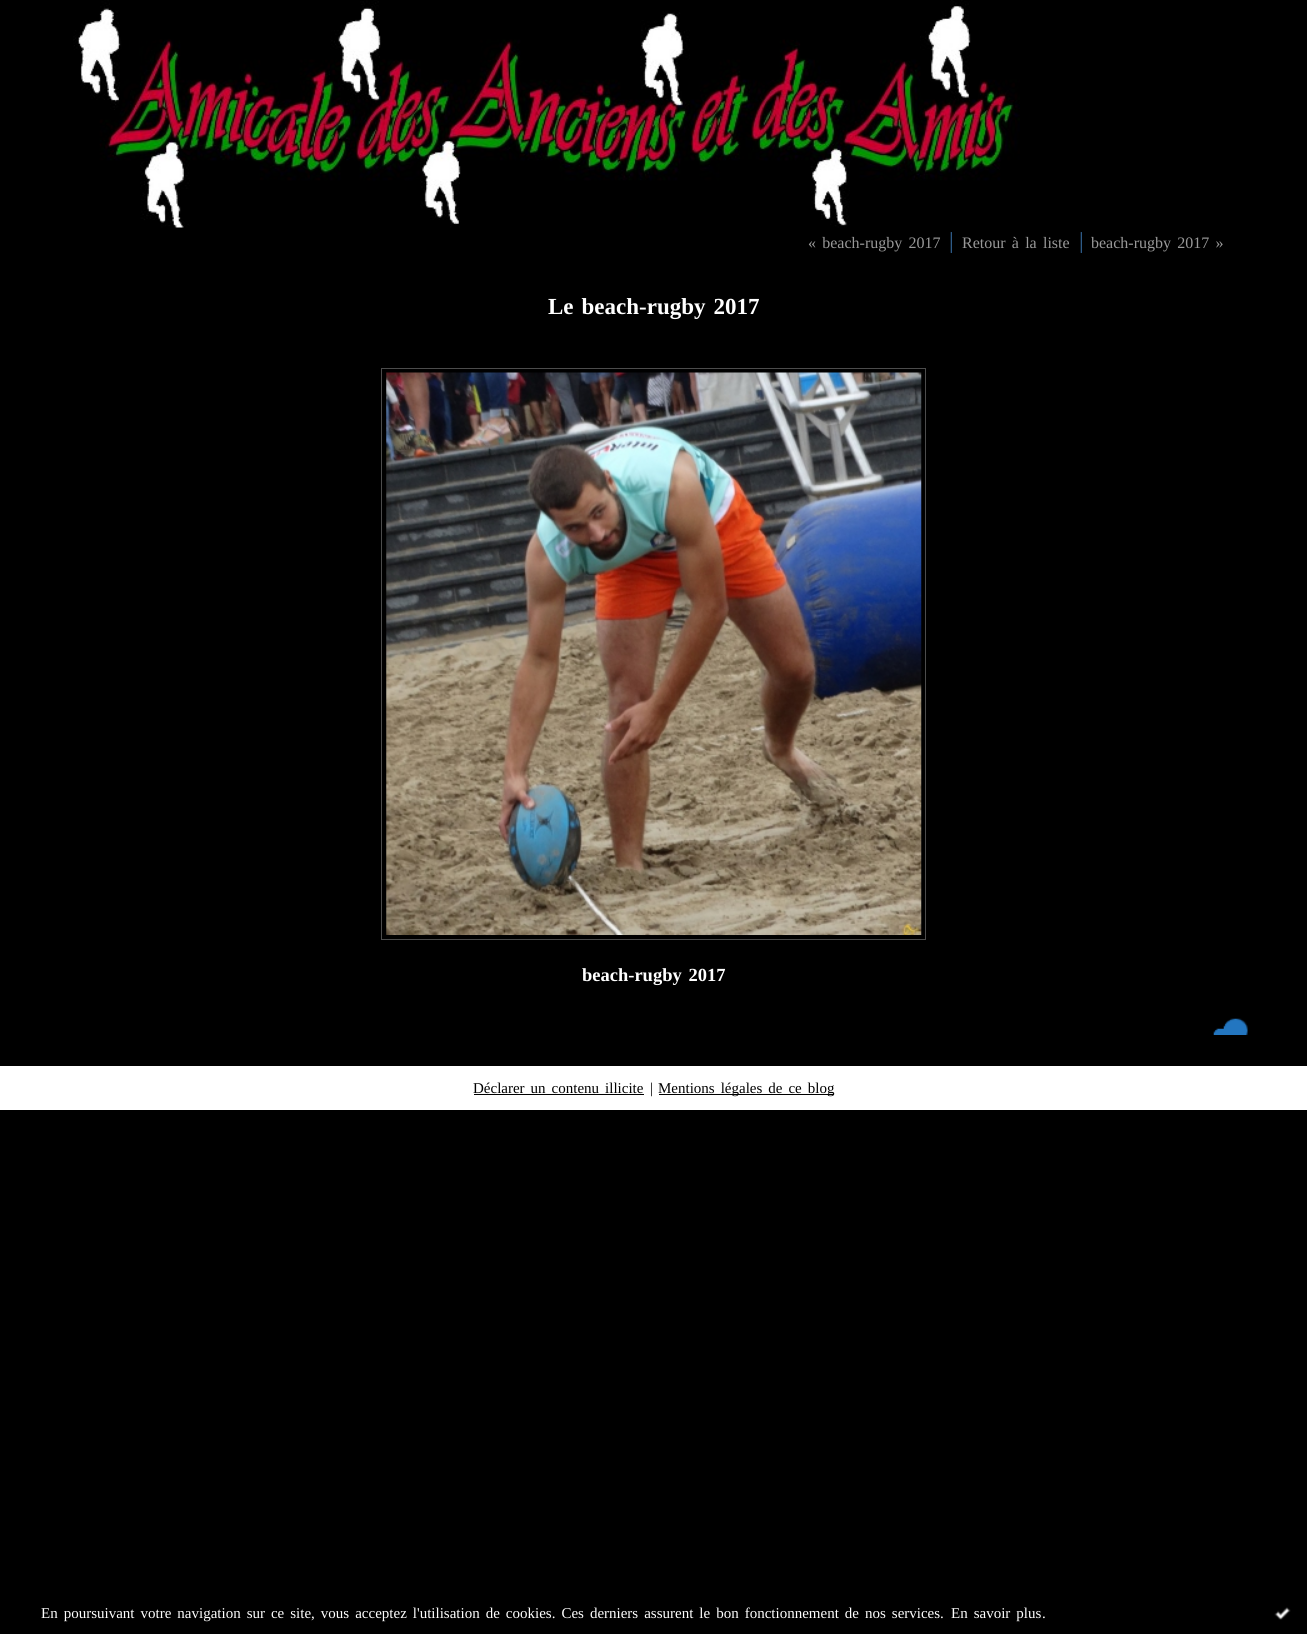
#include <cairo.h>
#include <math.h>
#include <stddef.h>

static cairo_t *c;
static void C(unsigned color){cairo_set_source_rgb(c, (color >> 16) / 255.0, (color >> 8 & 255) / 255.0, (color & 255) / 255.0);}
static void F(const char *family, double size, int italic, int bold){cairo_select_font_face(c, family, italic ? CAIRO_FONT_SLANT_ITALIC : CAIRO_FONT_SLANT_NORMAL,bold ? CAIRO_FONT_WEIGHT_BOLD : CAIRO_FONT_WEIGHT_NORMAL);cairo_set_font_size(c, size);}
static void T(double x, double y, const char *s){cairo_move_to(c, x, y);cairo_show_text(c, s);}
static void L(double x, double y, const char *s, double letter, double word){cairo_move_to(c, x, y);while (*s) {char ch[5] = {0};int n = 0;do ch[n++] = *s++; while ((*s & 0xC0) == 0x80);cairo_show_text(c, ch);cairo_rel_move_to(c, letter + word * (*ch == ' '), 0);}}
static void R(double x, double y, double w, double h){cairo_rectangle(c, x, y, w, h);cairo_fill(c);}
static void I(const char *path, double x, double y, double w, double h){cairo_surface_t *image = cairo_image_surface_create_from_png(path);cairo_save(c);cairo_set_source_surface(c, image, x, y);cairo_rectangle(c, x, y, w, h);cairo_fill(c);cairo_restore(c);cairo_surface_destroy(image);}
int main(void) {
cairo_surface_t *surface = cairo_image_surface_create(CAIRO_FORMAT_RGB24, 1307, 1634);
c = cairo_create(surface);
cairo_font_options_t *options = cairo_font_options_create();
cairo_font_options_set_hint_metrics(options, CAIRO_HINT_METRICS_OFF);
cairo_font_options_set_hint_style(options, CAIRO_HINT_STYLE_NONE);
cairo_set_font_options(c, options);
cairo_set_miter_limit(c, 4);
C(0x000000);
cairo_paint(c);
I("1.png",1213,1018,35,17);
I("2.png",73,0,947,228);
F("Liberation Serif",16,0,0);
C(0x999999);
L(808,248,"« beach-rugby 2017",0,2.25);
F("Liberation Serif",23,0,0);
C(0x336699);
T(949,248,"|");
F("Liberation Serif",16,0,0);
C(0x999999);
L(962,248,"Retour à la liste",0,2.25);
F("Liberation Serif",23,0,0);
C(0x336699);
T(1079,248,"|");
F("Liberation Serif",16,0,0);
C(0x999999);
L(1091,248,"beach-rugby 2017 »",0,2.25);
F("Liberation Serif",23,0,1);
C(0xffffff);
L(548,314,"Le beach-rugby 2017",0,2.25);
cairo_rectangle(c,381.5,368.5,544,571);
C(0x4c4c4c);
cairo_set_line_width(c,1);
cairo_stroke(c);
I("3.png",386,372,536,563);
F("Liberation Serif",18.5,0,1);
C(0xffffff);
L(582,981,"beach-rugby 2017",0,2.25);
R(0,1066,1307,44);
F("Liberation Serif",15,0,0);
C(0x000000);
L(473,1093,"Déclarer un contenu illicite",0,2.25);
R(474,1094,170,1);
T(650,1093,"|");
R(659,1094,175,1);
L(658,1093,"Mentions légales de ce blog",0,2.25);
C(0xffffff);
L(41,1618,"En poursuivant votre navigation sur ce site, vous acceptez l'utilisation de cookies. Ces derniers assurent le bon fonctionnement de nos services.",0,2.25);
L(951,1618,"En savoir plus",0,2.25);
T(1042,1618,".");
I("4.png",1274,1607,17,13);
cairo_surface_write_to_png(surface, "o.png");
cairo_font_options_destroy(options);
cairo_destroy(c);
cairo_surface_destroy(surface);
return 0;
}
